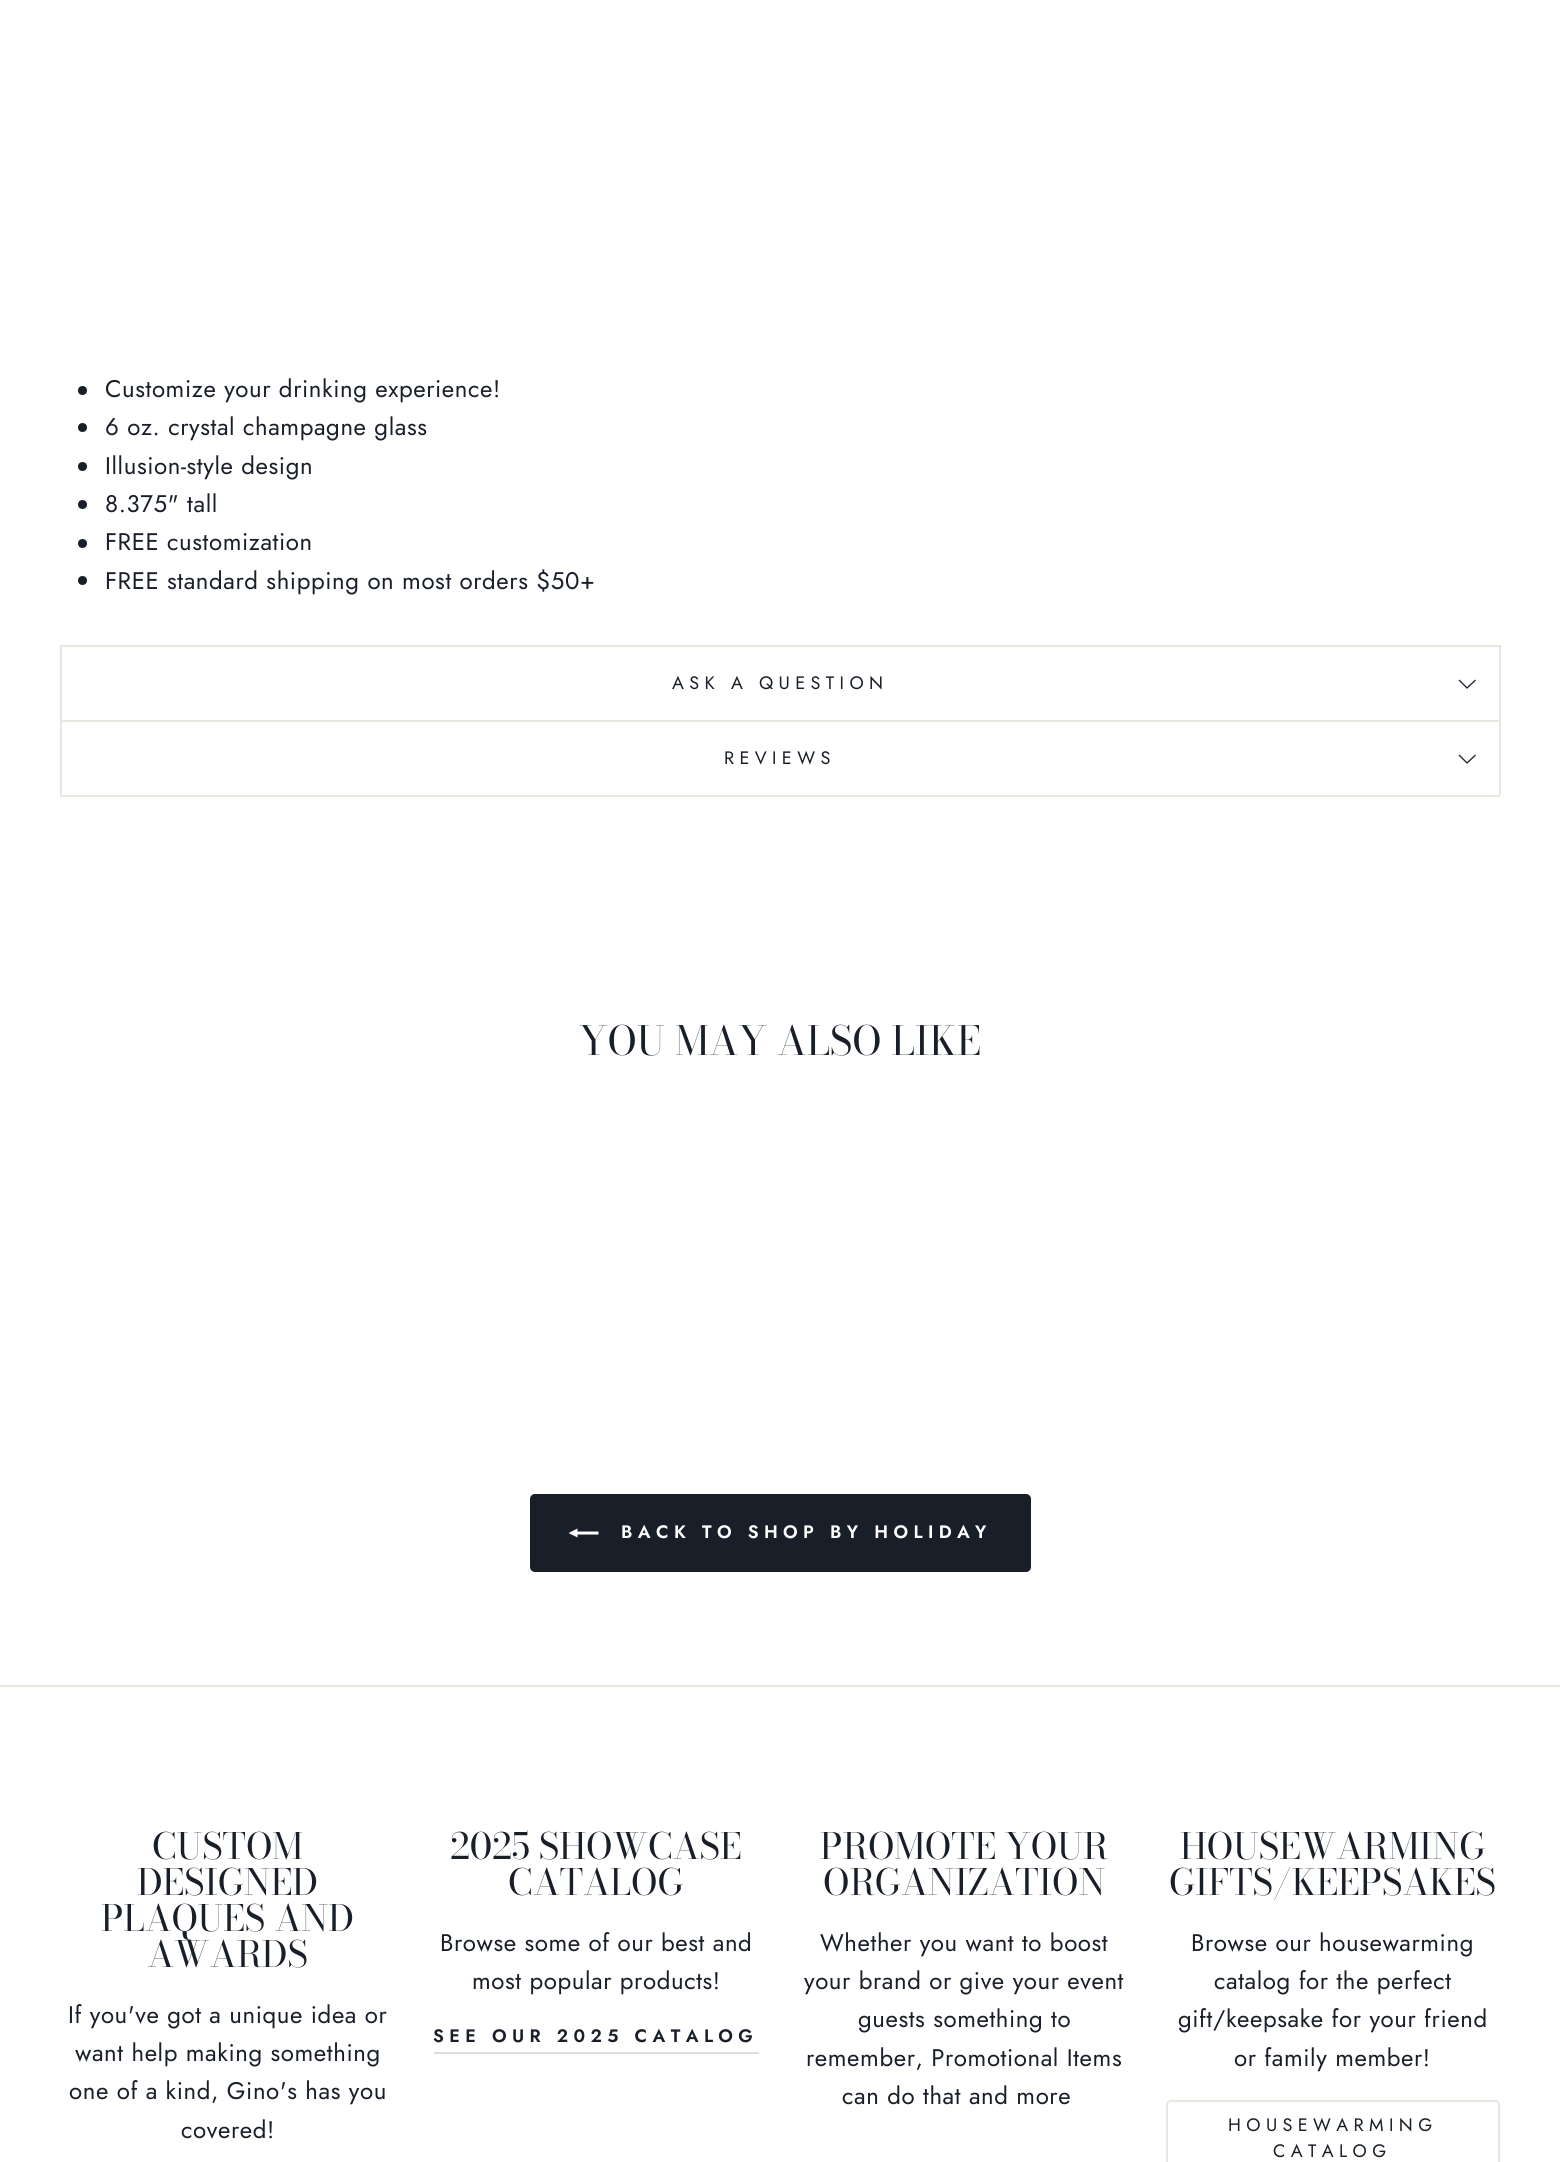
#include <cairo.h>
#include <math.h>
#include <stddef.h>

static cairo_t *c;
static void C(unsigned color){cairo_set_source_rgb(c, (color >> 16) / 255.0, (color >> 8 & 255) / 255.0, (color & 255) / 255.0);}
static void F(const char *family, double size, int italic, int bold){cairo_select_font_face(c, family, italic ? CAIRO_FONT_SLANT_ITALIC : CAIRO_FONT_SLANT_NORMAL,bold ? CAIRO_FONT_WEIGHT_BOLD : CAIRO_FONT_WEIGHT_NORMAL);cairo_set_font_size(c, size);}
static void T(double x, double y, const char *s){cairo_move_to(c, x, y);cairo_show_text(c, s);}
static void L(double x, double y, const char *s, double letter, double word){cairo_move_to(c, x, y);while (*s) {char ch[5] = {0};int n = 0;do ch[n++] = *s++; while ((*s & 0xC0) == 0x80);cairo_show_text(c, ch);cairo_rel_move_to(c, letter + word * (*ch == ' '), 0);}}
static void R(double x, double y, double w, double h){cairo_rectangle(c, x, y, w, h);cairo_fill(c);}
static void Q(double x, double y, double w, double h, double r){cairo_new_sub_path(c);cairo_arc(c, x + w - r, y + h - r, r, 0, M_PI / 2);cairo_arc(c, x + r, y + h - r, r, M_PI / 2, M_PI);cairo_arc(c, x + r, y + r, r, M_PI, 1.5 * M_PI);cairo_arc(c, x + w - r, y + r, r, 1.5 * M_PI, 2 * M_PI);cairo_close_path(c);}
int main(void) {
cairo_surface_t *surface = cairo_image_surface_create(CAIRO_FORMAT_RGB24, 1560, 2162);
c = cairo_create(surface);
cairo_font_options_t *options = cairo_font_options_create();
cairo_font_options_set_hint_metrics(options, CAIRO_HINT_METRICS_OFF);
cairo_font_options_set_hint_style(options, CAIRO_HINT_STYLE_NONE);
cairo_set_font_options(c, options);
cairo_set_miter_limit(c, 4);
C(0xffffff);
cairo_paint(c);
C(0x191f29);
cairo_arc(c,82.5,390.5,4.5,0,2 * M_PI);
cairo_fill(c);
F("Jost",24,0,0);
L(105,397,"Customize your drinking experience!",.6,0);
cairo_new_path(c);
cairo_arc(c,82.5,427.5,4.5,0,2 * M_PI);
cairo_fill(c);
L(105,435,"6 oz. crystal champagne glass",.6,0);
cairo_new_path(c);
cairo_arc(c,82.5,466.5,4.5,0,2 * M_PI);
cairo_fill(c);
L(105,474,"Illusion-style design",.6,0);
cairo_new_path(c);
cairo_arc(c,82.5,504.5,4.5,0,2 * M_PI);
cairo_fill(c);
L(105,512,"8.375\" tall",.6,0);
cairo_new_path(c);
cairo_arc(c,82.5,543.5,4.5,0,2 * M_PI);
cairo_fill(c);
L(105,550,"FREE customization",.6,0);
cairo_new_path(c);
cairo_arc(c,82.5,580.5,4.5,0,2 * M_PI);
cairo_fill(c);
L(105,589,"FREE standard shipping on most orders $50+",.6,0);
C(0xe8e8e1);
R(60,795,1440,2);
R(60,645,1440,2);
R(1499,645,2,75);
R(60,645,2,75);
F("Jost",18,0,0);
C(0x191f29);
L(672,689,"ASK A QUESTION",5.4,0);
cairo_new_path(c);
cairo_move_to(c,1459,680);
cairo_line_to(c,1467,688);
cairo_line_to(c,1475.5,680);
cairo_set_line_width(c,1.3);
cairo_stroke(c);
C(0xe8e8e1);
R(60,720,1440,2);
R(1499,720,2,75);
R(60,720,2,75);
C(0x191f29);
L(724,764,"REVIEWS",5.4,0);
cairo_new_path(c);
cairo_move_to(c,1459,755);
cairo_line_to(c,1467,763);
cairo_line_to(c,1475.5,755);
cairo_stroke(c);
F("Bodoni Moda",39.9,0,0);
T(579,1055,"YOU MAY ALSO LIKE");
Q(530,1494,501,78,5);
cairo_fill(c);
C(0xffffff);
cairo_new_path(c);
cairo_move_to(c,598.5,1531.5);
cairo_line_to(c,598.5,1534.5);
cairo_line_to(c,577.5,1534.5);
cairo_line_to(c,577.5,1537.5);
cairo_line_to(c,568.5,1533);
cairo_line_to(c,577.5,1528.5);
cairo_line_to(c,577.5,1531.5);
cairo_close_path(c);
cairo_fill(c);
F("Jost SemiBold",18,0,0);
L(621,1538,"BACK TO SHOP BY HOLIDAY",5.4,0);
C(0xe8e8e1);
R(0,1685,1560,2);
F("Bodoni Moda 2",36,0,0);
C(0x191f29);
T(152,1859,"CUSTOM");
T(137,1895,"DESIGNED");
T(101,1931,"PLAQUES AND");
T(147,1967,"AWARDS");
F("Jost",24,0,0);
L(68,2023,"If you've got a unique idea or",.6,0);
L(75,2061,"want help making something",.6,0);
L(69,2099,"one of a kind, Gino's has you",.6,0);
L(181,2138,"covered!",.6,0);
F("Bodoni Moda 2",36,0,0);
T(450,1859,"2025 SHOWCASE");
T(508,1895,"CATALOG");
F("Jost",24,0,0);
L(440,1951,"Browse some of our best and",.6,0);
L(472,1989,"most popular products!",.6,0);
C(0xdddddf);
R(434,2052,325,2);
F("Jost SemiBold",18,0,0);
C(0x191f29);
L(433,2042,"SEE OUR 2025 CATALOG",5.4,0);
F("Bodoni Moda 2",36,0,0);
T(820,1859,"PROMOTE YOUR");
T(823,1895,"ORGANIZATION");
F("Jost",24,0,0);
L(820,1951,"Whether you want to boost",.6,0);
L(804,1989,"your brand or give your event",.6,0);
L(858,2027,"guests something to",.6,0);
L(806,2066,"remember, Promotional Items",.6,0);
L(842,2104,"can do that and more",.6,0);
F("Bodoni Moda 2",36,0,0);
T(1180,1859,"HOUSEWARMING");
T(1169,1895,"GIFTS/KEEPSAKES");
F("Jost",24,0,0);
L(1191,1951,"Browse our housewarming",.6,0);
L(1214,1989,"catalog for the perfect",.6,0);
L(1178,2027,"gift/keepsake for your friend",.6,0);
L(1234,2066,"or family member!",.6,0);
Q(1167,2101,332,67,4);
C(0xe8e8e1);
cairo_set_line_width(c,2);
cairo_stroke(c);
F("Jost",18,0,0);
C(0x191f29);
L(1228,2131,"HOUSEWARMING",5.4,0);
L(1273,2157,"CATALOG",5.4,0);
cairo_surface_write_to_png(surface, "o.png");
cairo_font_options_destroy(options);
cairo_destroy(c);
cairo_surface_destroy(surface);
return 0;
}
